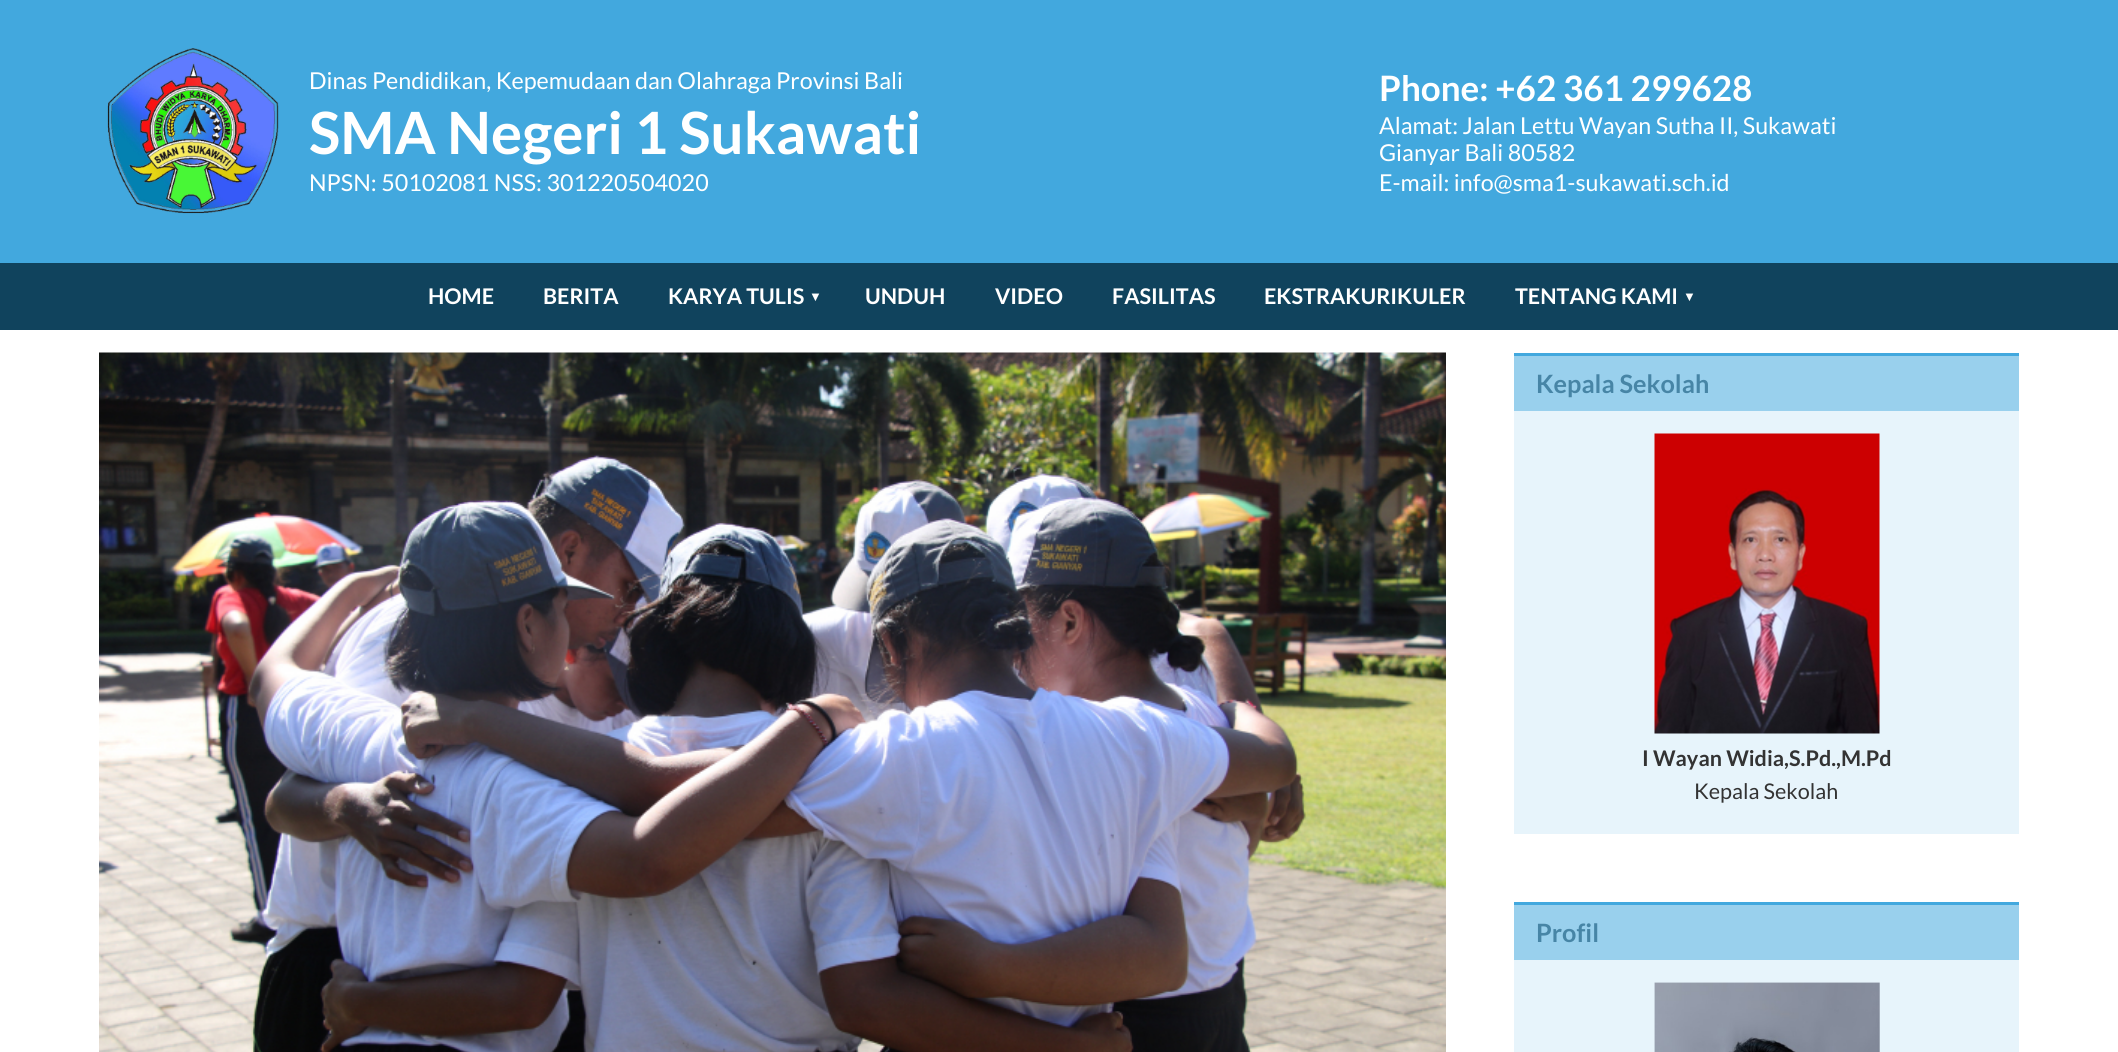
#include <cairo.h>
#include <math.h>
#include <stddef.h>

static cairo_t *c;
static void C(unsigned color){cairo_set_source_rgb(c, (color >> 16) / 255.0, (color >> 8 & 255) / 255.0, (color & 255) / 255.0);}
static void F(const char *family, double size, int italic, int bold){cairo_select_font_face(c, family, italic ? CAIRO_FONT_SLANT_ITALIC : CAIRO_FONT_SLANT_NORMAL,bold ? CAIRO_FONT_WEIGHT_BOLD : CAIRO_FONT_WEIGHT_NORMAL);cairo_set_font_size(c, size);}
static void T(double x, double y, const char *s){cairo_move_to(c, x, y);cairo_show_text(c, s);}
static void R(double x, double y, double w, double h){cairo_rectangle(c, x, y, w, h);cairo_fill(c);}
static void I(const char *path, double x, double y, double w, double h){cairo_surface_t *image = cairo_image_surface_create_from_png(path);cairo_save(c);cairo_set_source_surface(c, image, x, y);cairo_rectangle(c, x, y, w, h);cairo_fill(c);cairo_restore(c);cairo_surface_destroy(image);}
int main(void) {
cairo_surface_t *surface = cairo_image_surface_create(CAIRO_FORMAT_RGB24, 2118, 1052);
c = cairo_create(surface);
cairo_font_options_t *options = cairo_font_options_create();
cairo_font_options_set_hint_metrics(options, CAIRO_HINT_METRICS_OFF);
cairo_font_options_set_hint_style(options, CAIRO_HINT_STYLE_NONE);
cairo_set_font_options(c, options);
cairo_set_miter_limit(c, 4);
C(0xffffff);
cairo_paint(c);
C(0x42a8de);
R(0,0,2118,263);
I("1.png",107,48,172,166);
F("Lato",23.3,0,0);
C(0xffffff);
T(309,89,"Dinas Pendidikan, Kepemudaan dan Olahraga Provinsi Bali");
F("Lato",58.25,0,1);
T(309,154,"SMA Negeri 1 Sukawati");
F("Lato",23.3,0,0);
T(309,191,"NPSN: 50102081 NSS: 301220504020");
F("Lato",35,0,1);
T(1379,101,"Phone: +62 361 299628");
F("Lato",23.3,0,0);
T(1379,134,"Alamat: Jalan Lettu Wayan Sutha II, Sukawati");
T(1379,161,"Gianyar Bali 80582");
T(1379,191,"E-mail: info@sma1-sukawati.sch.id");
C(0x10435d);
R(0,263,2118,67);
F("Lato",21.6,0,1);
C(0xffffff);
T(428,304,"HOME");
T(543,304,"BERITA");
T(668,304,"KARYA TULIS");
F("Liberation Sans",13,0,1);
T(809,301,"▼");
F("Lato",21.6,0,1);
T(865,304,"UNDUH");
T(995,304,"VIDEO");
T(1112,304,"FASILITAS");
T(1264,304,"EKSTRAKURIKULER");
T(1515,304,"TENTANG KAMI");
F("Liberation Sans",13,0,1);
T(1683,301,"▼");
I("2.png",99,352,1347,700);
C(0xe7f4fb);
R(1514,411,505,423);
C(0x99d0ed);
R(1514,356,505,55);
C(0x42a8de);
R(1514,353,505,3);
F("Lato",25.25,0,1);
C(0x4785a6);
T(1536,393,"Kepala Sekolah");
I("3.png",1654,433,226,301);
F("Lato",21.6,0,1);
C(0x333333);
T(1642,766,"I Wayan Widia,S.Pd.,M.Pd");
F("Lato",21.6,0,0);
T(1694,799,"Kepala Sekolah");
C(0xe7f4fb);
R(1514,960,505,92);
C(0x99d0ed);
R(1514,905,505,55);
C(0x42a8de);
R(1514,902,505,3);
F("Lato",25.25,0,1);
C(0x4785a6);
T(1536,942,"Profil");
I("4.png",1654,982,226,70);
cairo_surface_write_to_png(surface, "o.png");
cairo_font_options_destroy(options);
cairo_destroy(c);
cairo_surface_destroy(surface);
return 0;
}
